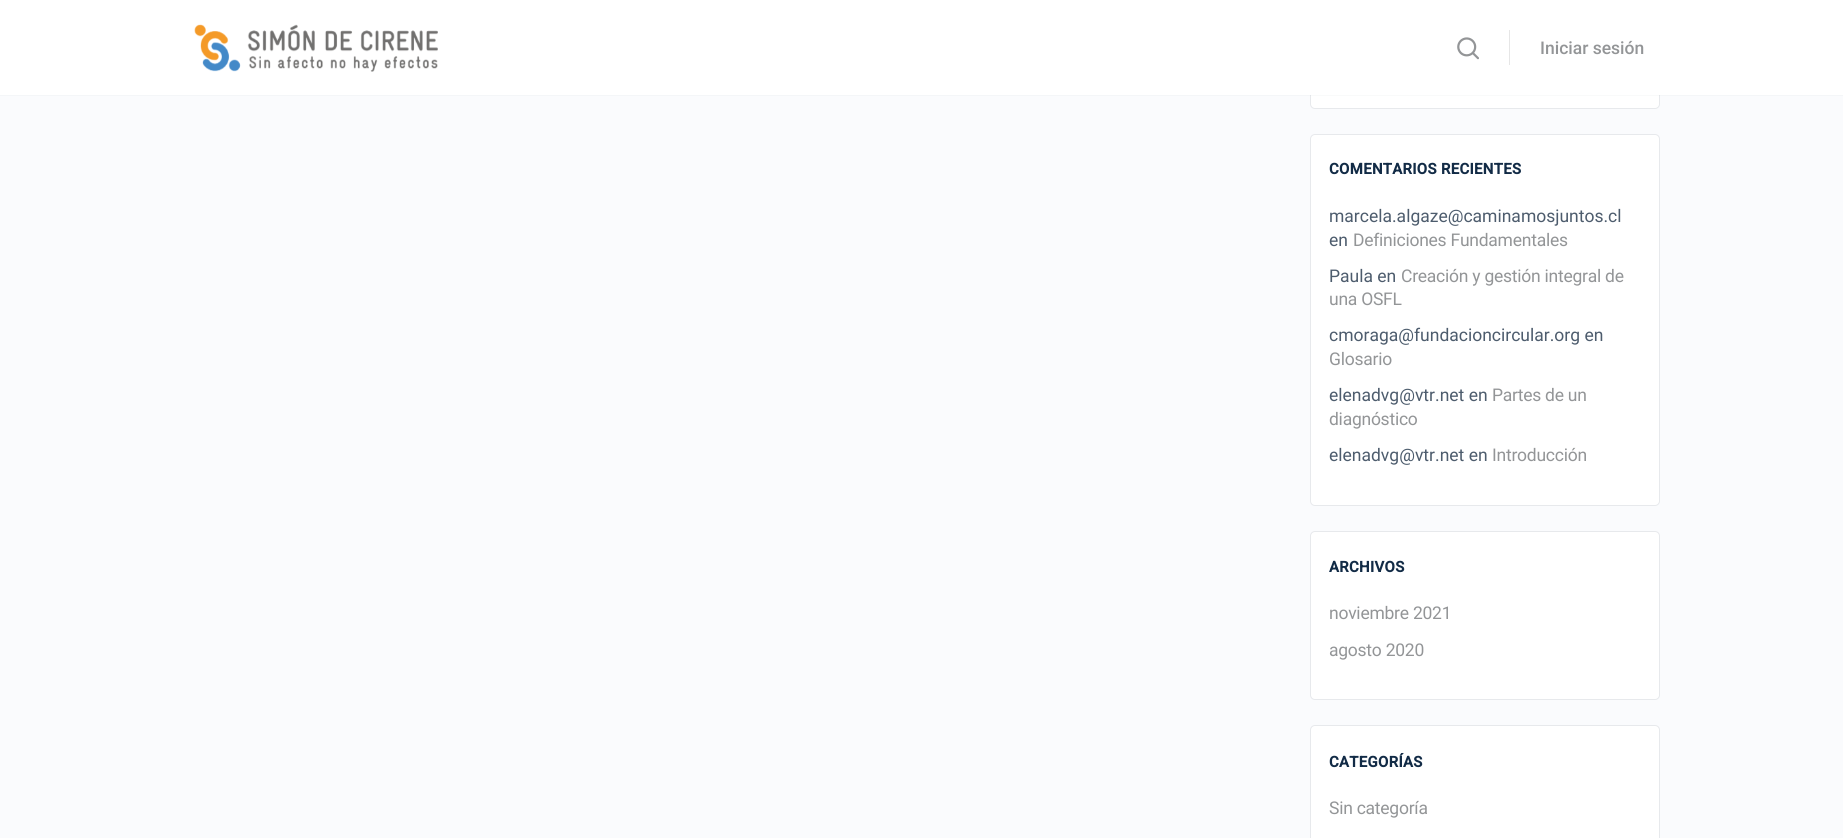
#include <cairo.h>
#include <math.h>
#include <stddef.h>

static cairo_t *c;
static void C(unsigned color){cairo_set_source_rgb(c, (color >> 16) / 255.0, (color >> 8 & 255) / 255.0, (color & 255) / 255.0);}
static void F(const char *family, double size, int italic, int bold){cairo_select_font_face(c, family, italic ? CAIRO_FONT_SLANT_ITALIC : CAIRO_FONT_SLANT_NORMAL,bold ? CAIRO_FONT_WEIGHT_BOLD : CAIRO_FONT_WEIGHT_NORMAL);cairo_set_font_size(c, size);}
static void T(double x, double y, const char *s){cairo_move_to(c, x, y);cairo_show_text(c, s);}
static void L(double x, double y, const char *s, double letter, double word){cairo_move_to(c, x, y);while (*s) {char ch[5] = {0};int n = 0;do ch[n++] = *s++; while ((*s & 0xC0) == 0x80);cairo_show_text(c, ch);cairo_rel_move_to(c, letter + word * (*ch == ' '), 0);}}
static void R(double x, double y, double w, double h){cairo_rectangle(c, x, y, w, h);cairo_fill(c);}
static void Q(double x, double y, double w, double h, double r){cairo_new_sub_path(c);cairo_arc(c, x + w - r, y + h - r, r, 0, M_PI / 2);cairo_arc(c, x + r, y + h - r, r, M_PI / 2, M_PI);cairo_arc(c, x + r, y + r, r, M_PI, 1.5 * M_PI);cairo_arc(c, x + w - r, y + r, r, 1.5 * M_PI, 2 * M_PI);cairo_close_path(c);}
static void I(const char *path, double x, double y, double w, double h){cairo_surface_t *image = cairo_image_surface_create_from_png(path);cairo_save(c);cairo_set_source_surface(c, image, x, y);cairo_rectangle(c, x, y, w, h);cairo_fill(c);cairo_restore(c);cairo_surface_destroy(image);}
int main(void) {
cairo_surface_t *surface = cairo_image_surface_create(CAIRO_FORMAT_RGB24, 1843, 838);
c = cairo_create(surface);
cairo_font_options_t *options = cairo_font_options_create();
cairo_font_options_set_hint_metrics(options, CAIRO_HINT_METRICS_OFF);
cairo_font_options_set_hint_style(options, CAIRO_HINT_STYLE_NONE);
cairo_set_font_options(c, options);
cairo_set_miter_limit(c, 4);
C(0xfafbfd);
cairo_paint(c);
C(0xffffff);
Q(1310.5,-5.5,349,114,4.5);
cairo_fill_preserve(c);
C(0xe7e9ec);
cairo_set_line_width(c,1);
cairo_stroke(c);
cairo_set_source_rgba(c,0.545,0.553,0.616,0.05);
cairo_new_path(c);
cairo_move_to(c,0,95);
cairo_line_to(c,0,96);
cairo_line_to(c,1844,96);
cairo_line_to(c,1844,1);
cairo_line_to(c,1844,95);
cairo_close_path(c);
cairo_fill(c);
C(0xffffff);
R(0,0,1843,95);
I("1.png",194,24,244,48);
I("2.png",1457,37,22,23);
C(0xe6e6e6);
R(1509,30,1,35);
F("Roboto Medium",17.5,0,0);
C(0x939597);
T(1540,54,"Iniciar sesión");
C(0xffffff);
Q(1310.5,134.5,349,371,4.5);
cairo_fill_preserve(c);
C(0xe7e9ec);
cairo_stroke(c);
F("Roboto",15,0,1);
C(0x122b46);
L(1329,174,"COMENTARIOS RECIENTES",.3,0);
F("Roboto",17.5,0,0);
C(0x4d5c6d);
T(1329,222,"marcela.algaze@caminamosjuntos.cl");
T(1329,246,"en");
C(0x939597);
L(1353,246,"Definiciones Fundamentales",-.25,0);
C(0x4d5c6d);
T(1329,282,"Paula en");
C(0x939597);
L(1401,282,"Creación y gestión integral de",-.25,0);
L(1329,305,"una OSFL",-.25,0);
C(0x4d5c6d);
T(1329,341,"cmoraga@fundacioncircular.org en");
C(0x939597);
L(1329,365,"Glosario",-.25,0);
C(0x4d5c6d);
T(1329,401,"elenadvg@vtr.net en");
C(0x939597);
L(1492,401,"Partes de un",-.25,0);
L(1329,425,"diagnóstico",-.25,0);
C(0x4d5c6d);
T(1329,461,"elenadvg@vtr.net en");
C(0x939597);
L(1492,461,"Introducción",-.25,0);
C(0xffffff);
Q(1310.5,531.5,349,168,4.5);
cairo_fill_preserve(c);
C(0xe7e9ec);
cairo_stroke(c);
F("Roboto",15,0,1);
C(0x122b46);
L(1329,572,"ARCHIVOS",.3,0);
F("Roboto",17.5,0,0);
C(0x939597);
L(1329,619,"noviembre 2021",-.25,0);
L(1329,656,"agosto 2020",-.25,0);
C(0xffffff);
Q(1310.5,725.5,349,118,4.5);
cairo_fill_preserve(c);
C(0xe7e9ec);
cairo_stroke(c);
F("Roboto",15,0,1);
C(0x122b46);
L(1329,767,"CATEGORÍAS",.3,0);
F("Roboto",17.5,0,0);
C(0x939597);
L(1329,814,"Sin categoría",-.25,0);
cairo_surface_write_to_png(surface, "o.png");
cairo_font_options_destroy(options);
cairo_destroy(c);
cairo_surface_destroy(surface);
return 0;
}
